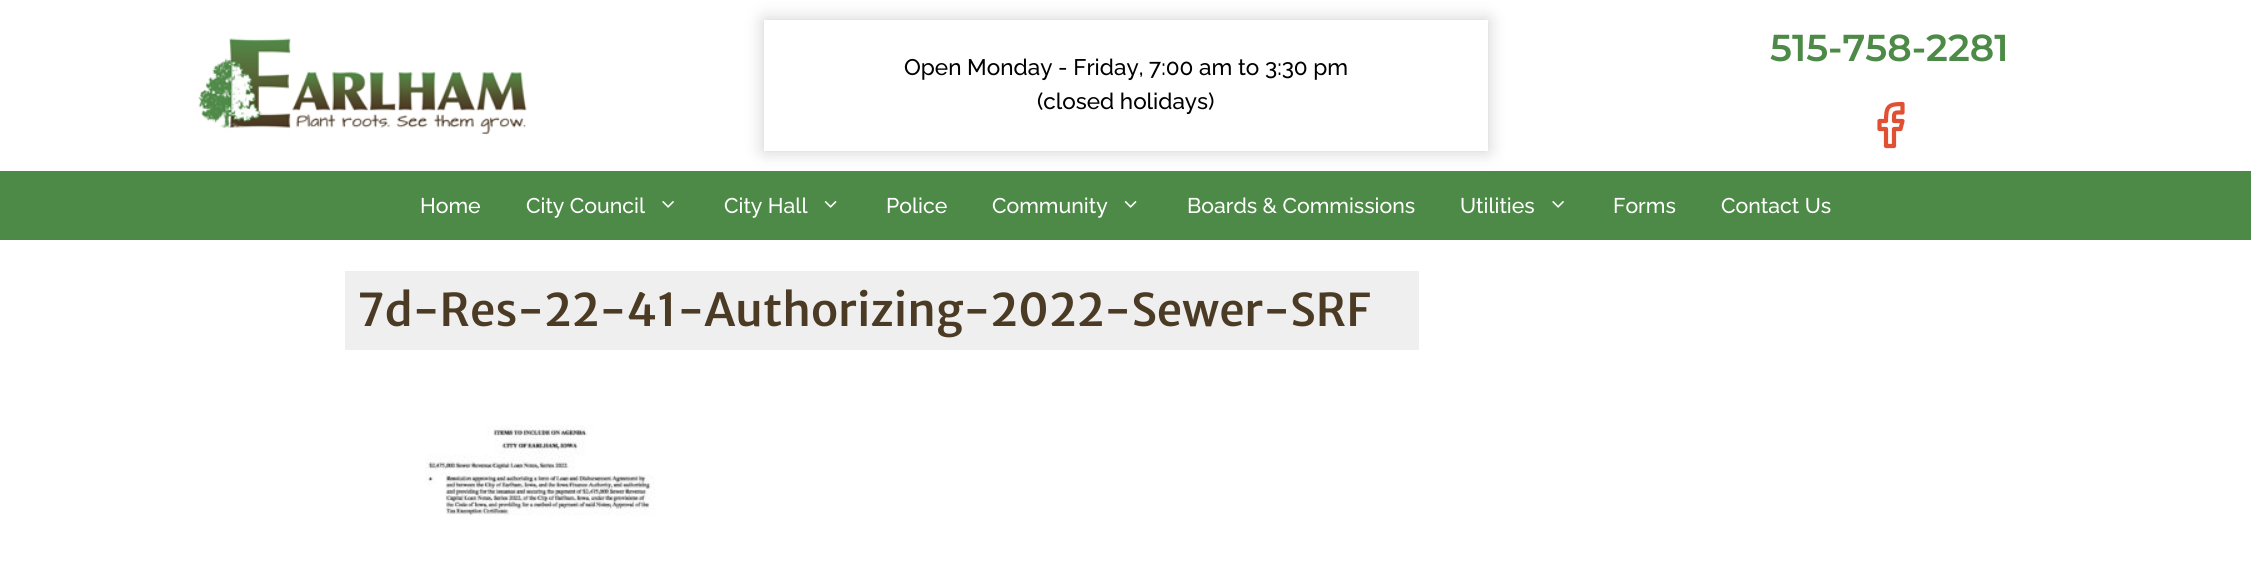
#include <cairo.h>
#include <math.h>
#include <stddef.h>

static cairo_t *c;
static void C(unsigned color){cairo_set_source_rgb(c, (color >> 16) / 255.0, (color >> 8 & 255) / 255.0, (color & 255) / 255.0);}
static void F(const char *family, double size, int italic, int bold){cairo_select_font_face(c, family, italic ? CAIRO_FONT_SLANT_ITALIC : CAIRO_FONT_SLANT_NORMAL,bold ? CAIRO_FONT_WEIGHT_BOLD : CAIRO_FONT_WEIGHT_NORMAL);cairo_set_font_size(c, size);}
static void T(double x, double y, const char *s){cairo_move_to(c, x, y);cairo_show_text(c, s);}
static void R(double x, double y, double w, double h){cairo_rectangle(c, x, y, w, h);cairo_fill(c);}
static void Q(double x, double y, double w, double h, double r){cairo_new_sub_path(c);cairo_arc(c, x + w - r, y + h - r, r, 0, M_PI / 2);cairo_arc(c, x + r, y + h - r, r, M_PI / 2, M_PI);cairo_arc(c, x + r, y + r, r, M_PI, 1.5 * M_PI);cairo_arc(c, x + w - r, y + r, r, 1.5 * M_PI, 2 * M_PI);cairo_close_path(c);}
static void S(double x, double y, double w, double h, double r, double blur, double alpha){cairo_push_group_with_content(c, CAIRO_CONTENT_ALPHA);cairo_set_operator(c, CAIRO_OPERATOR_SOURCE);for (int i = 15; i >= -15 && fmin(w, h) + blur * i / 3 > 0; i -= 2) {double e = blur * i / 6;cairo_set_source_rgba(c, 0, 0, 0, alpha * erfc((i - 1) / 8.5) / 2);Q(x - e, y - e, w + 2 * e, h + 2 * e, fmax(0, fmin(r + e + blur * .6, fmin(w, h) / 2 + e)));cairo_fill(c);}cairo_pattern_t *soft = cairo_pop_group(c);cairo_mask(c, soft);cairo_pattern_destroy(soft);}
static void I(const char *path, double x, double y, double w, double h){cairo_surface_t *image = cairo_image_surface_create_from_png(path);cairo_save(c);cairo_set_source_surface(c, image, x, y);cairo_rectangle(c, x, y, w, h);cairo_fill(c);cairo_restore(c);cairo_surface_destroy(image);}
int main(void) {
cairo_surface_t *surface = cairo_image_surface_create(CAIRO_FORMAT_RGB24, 2251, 583);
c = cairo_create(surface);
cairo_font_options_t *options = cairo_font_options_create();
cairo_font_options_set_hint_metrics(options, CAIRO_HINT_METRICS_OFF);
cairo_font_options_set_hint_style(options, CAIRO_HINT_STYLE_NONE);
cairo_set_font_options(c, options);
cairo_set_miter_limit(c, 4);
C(0xffffff);
cairo_paint(c);
I("1.png",198,38,329,96);
C(0x4e8a47);
R(0,171,2251,69);
cairo_save(c);
cairo_set_fill_rule(c,CAIRO_FILL_RULE_EVEN_ODD);
cairo_new_path(c);
cairo_move_to(c,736,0);
cairo_line_to(c,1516,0);
cairo_line_to(c,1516,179);
cairo_line_to(c,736,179);
cairo_close_path(c);
cairo_move_to(c,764,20);
cairo_line_to(c,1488,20);
cairo_line_to(c,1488,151);
cairo_line_to(c,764,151);
cairo_close_path(c);
cairo_clip(c);
C(0x000000);
S(764,20,724,131,0,9,.2);
cairo_restore(c);
F("Raleway Medium",22.5,0,0);
C(0x000000);
T(904,75,"Open Monday - Friday, 7:00 am to 3:30 pm");
T(1037,109,"(closed holidays)");
F("Montserrat SemiBold",37.5,0,0);
C(0x4e8a47);
T(1770,61,"515-758-2281");
cairo_new_path(c);
cairo_move_to(c,1902.5,104);
cairo_curve_to(c,1888,104,1886,106.5,1886,121);
cairo_line_to(c,1879.5,121);
cairo_line_to(c,1879.5,129);
cairo_line_to(c,1886,129);
cairo_line_to(c,1886,146);
cairo_line_to(c,1894,146);
cairo_line_to(c,1894,129);
cairo_line_to(c,1900.5,129);
cairo_line_to(c,1902.5,121);
cairo_line_to(c,1894,121);
cairo_curve_to(c,1894,111.5,1893.5,112.5,1902.5,112.5);
cairo_close_path(c);
C(0xe05033);
cairo_set_line_width(c,4.2);
cairo_set_line_cap(c,CAIRO_LINE_CAP_ROUND);
cairo_set_line_join(c,CAIRO_LINE_JOIN_ROUND);
cairo_stroke(c);
F("Raleway Medium",21.25,0,0);
C(0xffffff);
T(420,213,"Home");
T(526,213,"City Council");
I("2.png",662,201,12,7);
T(724,213,"City Hall");
I("3.png",824,201,13,7);
T(886,213,"Police");
T(992,213,"Community");
I("3.png",1124,201,13,7);
T(1187,213,"Boards & Commissions");
T(1460,213,"Utilities");
I("2.png",1552,201,12,7);
T(1613,213,"Forms");
T(1721,213,"Contact Us");
C(0xefefef);
R(345,271,1074,79);
F("Merriweather Sans Medium",45,0,0);
C(0x4b3b24);
T(357,326,"7d-Res-22-41-Authorizing-2022-Sewer-SRF");
I("4.png",425,425,230,91);
cairo_surface_write_to_png(surface, "o.png");
cairo_font_options_destroy(options);
cairo_destroy(c);
cairo_surface_destroy(surface);
return 0;
}
